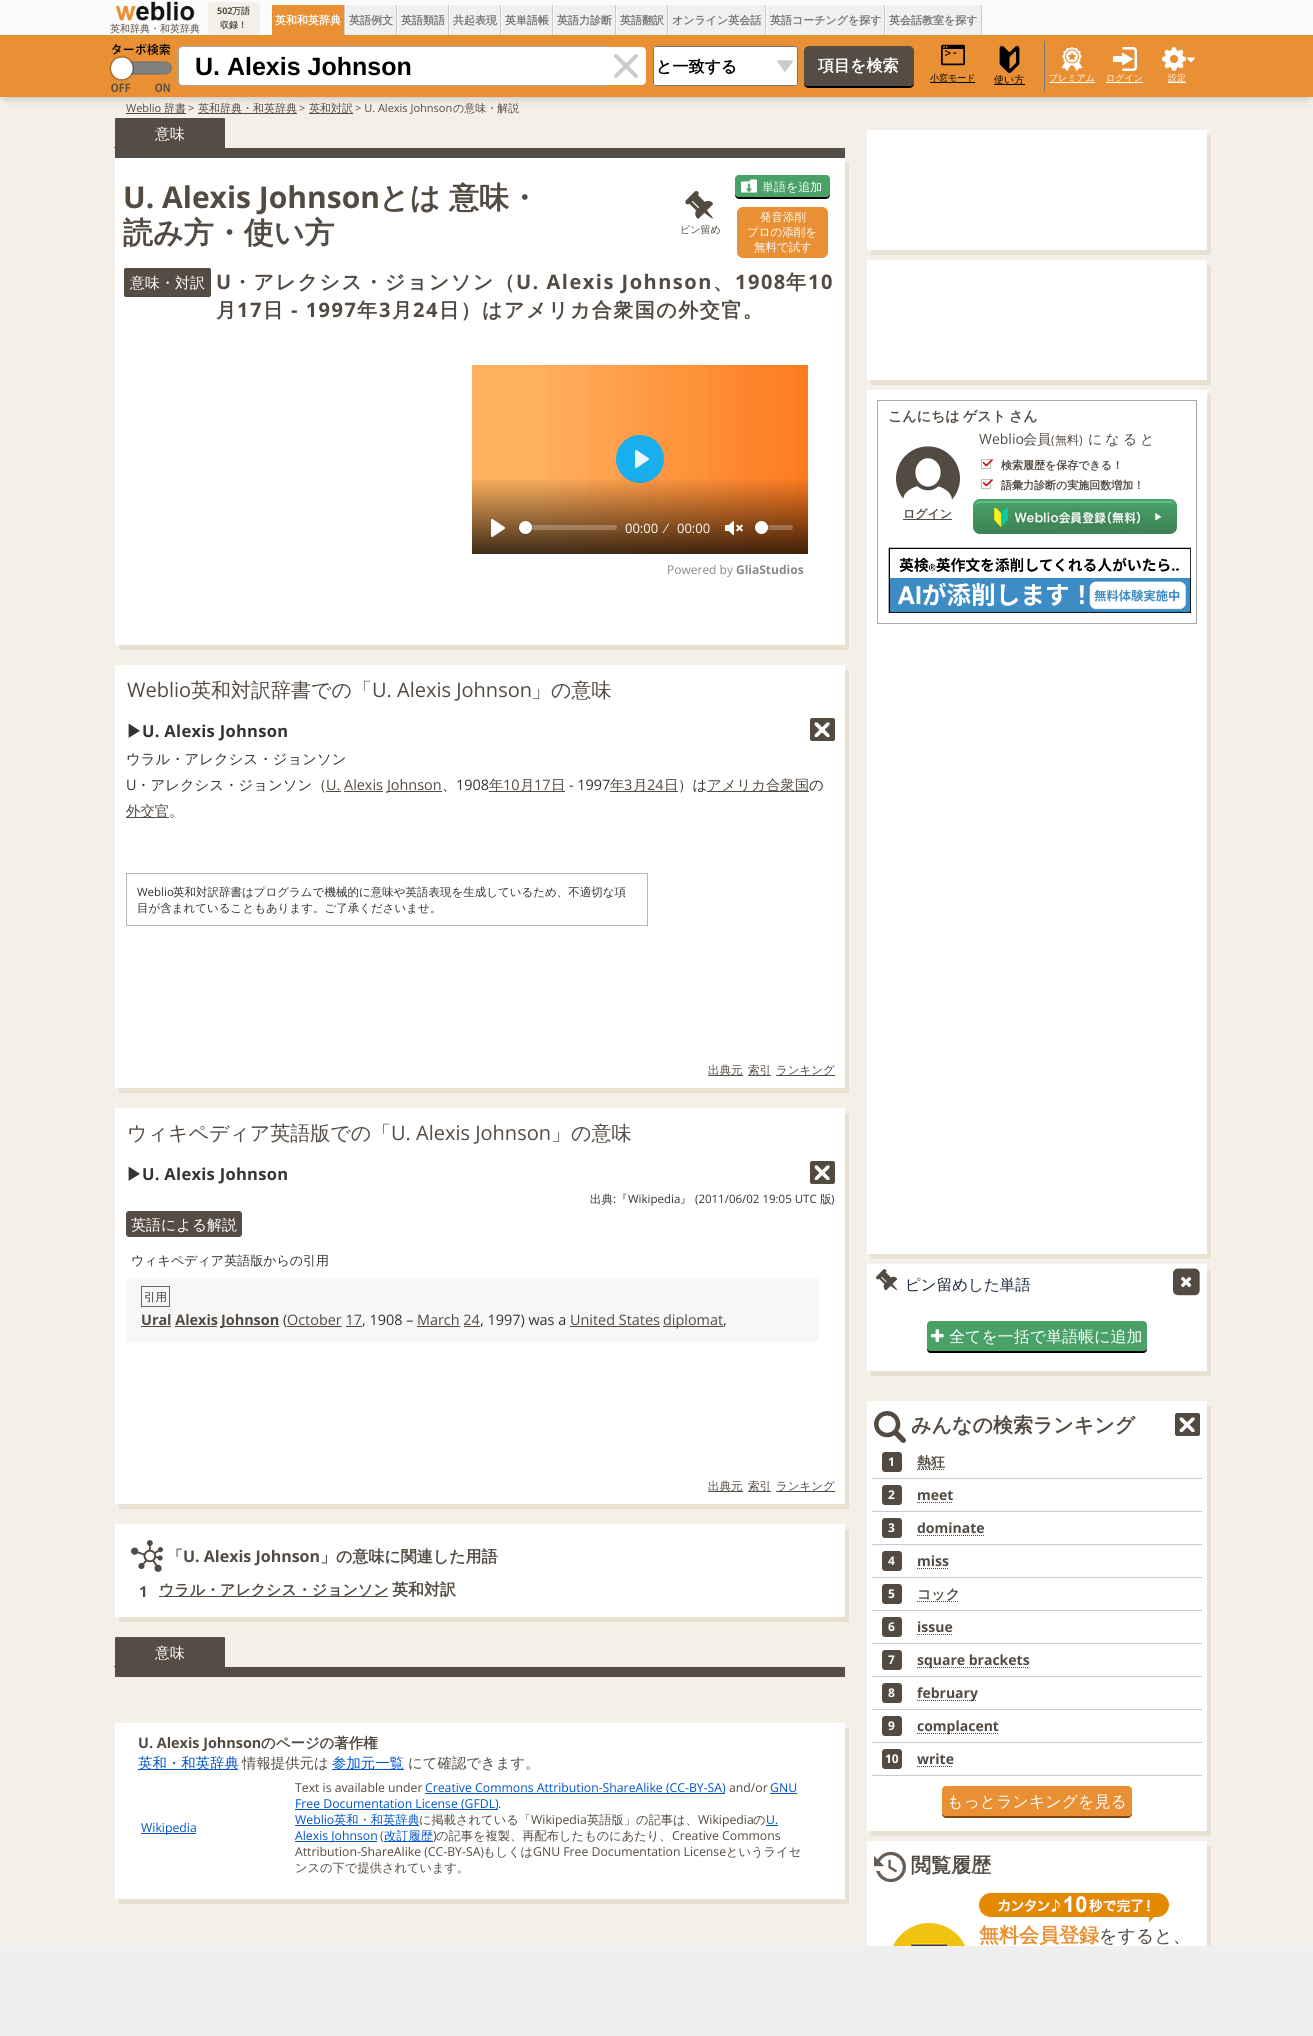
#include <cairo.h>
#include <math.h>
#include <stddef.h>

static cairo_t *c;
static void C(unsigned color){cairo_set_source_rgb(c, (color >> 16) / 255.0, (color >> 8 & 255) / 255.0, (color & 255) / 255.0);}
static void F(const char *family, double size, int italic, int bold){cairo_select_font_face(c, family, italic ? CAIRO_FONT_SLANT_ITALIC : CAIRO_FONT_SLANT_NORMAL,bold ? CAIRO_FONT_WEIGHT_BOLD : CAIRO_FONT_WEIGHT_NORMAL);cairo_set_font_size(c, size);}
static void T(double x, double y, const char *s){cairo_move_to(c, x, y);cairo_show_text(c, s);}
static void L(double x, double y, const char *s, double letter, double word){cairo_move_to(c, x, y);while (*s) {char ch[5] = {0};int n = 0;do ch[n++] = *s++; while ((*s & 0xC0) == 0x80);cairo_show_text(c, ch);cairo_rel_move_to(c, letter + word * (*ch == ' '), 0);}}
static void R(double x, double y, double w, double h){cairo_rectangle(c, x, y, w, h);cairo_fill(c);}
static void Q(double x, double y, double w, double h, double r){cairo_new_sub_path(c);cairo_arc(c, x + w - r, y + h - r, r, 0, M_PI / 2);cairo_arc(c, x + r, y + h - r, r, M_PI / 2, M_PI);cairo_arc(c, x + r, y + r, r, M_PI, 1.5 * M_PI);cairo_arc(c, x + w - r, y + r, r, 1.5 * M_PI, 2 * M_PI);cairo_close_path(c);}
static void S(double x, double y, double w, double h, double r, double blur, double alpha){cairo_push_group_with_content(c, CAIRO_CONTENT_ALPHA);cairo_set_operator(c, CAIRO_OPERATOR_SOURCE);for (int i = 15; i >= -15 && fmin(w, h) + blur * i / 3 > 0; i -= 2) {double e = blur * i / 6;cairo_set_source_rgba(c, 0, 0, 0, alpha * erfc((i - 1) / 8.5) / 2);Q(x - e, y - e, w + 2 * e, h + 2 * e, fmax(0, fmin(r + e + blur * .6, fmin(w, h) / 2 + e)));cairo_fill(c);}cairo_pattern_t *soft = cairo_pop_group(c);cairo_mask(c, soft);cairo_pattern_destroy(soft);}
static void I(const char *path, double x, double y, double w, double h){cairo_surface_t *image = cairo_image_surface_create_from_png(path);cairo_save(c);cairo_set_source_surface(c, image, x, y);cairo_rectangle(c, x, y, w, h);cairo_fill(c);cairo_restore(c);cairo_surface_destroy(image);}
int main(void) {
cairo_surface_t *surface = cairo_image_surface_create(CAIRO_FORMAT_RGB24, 1313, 2036);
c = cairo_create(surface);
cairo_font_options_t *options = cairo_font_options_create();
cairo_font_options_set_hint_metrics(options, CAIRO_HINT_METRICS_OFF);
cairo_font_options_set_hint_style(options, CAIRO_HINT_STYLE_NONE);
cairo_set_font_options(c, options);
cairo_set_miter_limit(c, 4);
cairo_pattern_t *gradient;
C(0xf5efe9);
cairo_paint(c);
C(0xfbfbfb);
R(0,0,1313,35);
C(0xf5efe9);
Q(208,2,52,32,4);
cairo_fill(c);
F("Open Sans",9,0,1);
C(0x534a42);
T(217,14,"502");
F("WenQuanYi Zen Hei",9,0,1);
T(232,14,"万語");
T(220,28,"収録！");
C(0xea9034);
R(272,5,72,30);
C(0xd0c8c0);
R(344,5,1,31);
F("WenQuanYi Zen Hei",11,0,1);
C(0xffffff);
T(275,24,"英和和英辞典");
C(0xf0f0f0);
R(346,5,50,30);
C(0xd0c8c0);
R(396,5,1,31);
C(0x777777);
T(349,24,"英語例文");
C(0xf0f0f0);
R(398,5,50,30);
C(0xd0c8c0);
R(448,5,1,31);
C(0x777777);
T(401,24,"英語類語");
C(0xf0f0f0);
R(450,5,50,30);
C(0xd0c8c0);
R(500,5,1,31);
C(0x777777);
T(453,24,"共起表現");
C(0xf0f0f0);
R(502,5,50,30);
C(0xd0c8c0);
R(552,5,1,31);
C(0x777777);
T(505,24,"英単語帳");
C(0xf0f0f0);
R(554,5,61,30);
C(0xd0c8c0);
R(615,5,1,31);
C(0x777777);
T(557,24,"英語力診断");
C(0xf0f0f0);
R(617,5,50,30);
C(0xd0c8c0);
R(667,5,1,31);
C(0x777777);
T(620,24,"英語翻訳");
C(0xf0f0f0);
R(669,5,96,30);
C(0xd0c8c0);
R(765,5,1,31);
C(0x777777);
T(672,24,"オンライン英会話");
C(0xf0f0f0);
R(767,5,117,30);
C(0xd0c8c0);
R(884,5,1,31);
C(0x777777);
T(770,24,"英語コーチングを探す");
C(0xf0f0f0);
R(886,5,95,30);
C(0xd0c8c0);
R(981,5,1,31);
C(0x777777);
T(889,24,"英会話教室を探す");
I("1.png",115,1,80,20);
F("WenQuanYi Zen Hei Medium",10,0,0);
C(0x534a42);
T(110,32,"英和辞典・和英辞典");
C(0x000000);
S(5,45,1303,52,0,5,.25);
C(0xea9034);
R(0,35,1313,62);
I("2.png",109,43,63,50);
C(0xffffff);
cairo_new_path(c);
cairo_move_to(c,606,47);
cairo_line_to(c,642,47);
cairo_curve_to(c,644,47,646,49,646,51);
cairo_line_to(c,646,81);
cairo_curve_to(c,646,83,644,85,642,85);
cairo_line_to(c,606,85);
cairo_close_path(c);
cairo_fill(c);
cairo_new_path(c);
cairo_move_to(c,182,47);
cairo_line_to(c,608,47);
cairo_line_to(c,608,85);
cairo_line_to(c,182,85);
cairo_curve_to(c,180.5,85,179,83.5,179,82);
cairo_line_to(c,179,50);
cairo_curve_to(c,179,48.5,180.5,47,182,47);
cairo_close_path(c);
cairo_fill(c);
C(0xaaaaaa);
cairo_set_fill_rule(c,CAIRO_FILL_RULE_EVEN_ODD);
cairo_new_path(c);
cairo_move_to(c,182,46);
cairo_line_to(c,608,46);
cairo_line_to(c,608,86);
cairo_line_to(c,182,86);
cairo_curve_to(c,180,86,178,84,178,82);
cairo_line_to(c,178,50);
cairo_curve_to(c,178,48,180,46,182,46);
cairo_close_path(c);
cairo_move_to(c,182,47);
cairo_line_to(c,608,47);
cairo_line_to(c,608,85);
cairo_line_to(c,182,85);
cairo_curve_to(c,180,85,179,84,179,82);
cairo_line_to(c,179,50);
cairo_curve_to(c,179,48,180,47,182,47);
cairo_close_path(c);
cairo_fill(c);
F("Liberation Sans",25,0,1);
C(0x000000);
T(195,75,"U. Alexis Johnson");
I("3.png",614,54,24,24);
C(0xffffff);
Q(653,46,145,40,3);
cairo_fill(c);
I("4.png",777,60,16,12);
Q(653.5,46.5,144,39,2.5);
C(0x767676);
cairo_set_line_width(c,1);
cairo_stroke(c);
F("WenQuanYi Zen Hei",16,0,1);
C(0x000000);
T(656,72,"と一致する");
cairo_set_fill_rule(c,CAIRO_FILL_RULE_WINDING);
cairo_new_path(c);
cairo_move_to(c,804,81);
cairo_line_to(c,804,83);
cairo_curve_to(c,804,86,806,88,809,88);
cairo_line_to(c,909,88);
cairo_curve_to(c,912,88,914,86,914,83);
cairo_line_to(c,914,81);
cairo_curve_to(c,914,84,912,86,909,86);
cairo_line_to(c,809,86);
cairo_curve_to(c,806,86,804,84,804,81);
cairo_close_path(c);
cairo_fill(c);
C(0x564c46);
Q(804,46,110,40,5);
cairo_fill(c);
C(0xffffff);
T(818,71,"項目を検索");
I("5.png",941,44,24,22);
C(0x000000);
R(930,82,45,1);
F("WenQuanYi Zen Hei Medium",9,0,0);
T(930,81,"小窓モード");
I("6.png",999,46,21,27);
R(994,84,31,1);
F("WenQuanYi Zen Hei Medium",10,0,0);
T(994,83,"使い方");
C(0x777777);
R(1044,41,1,50);
I("7.png",1061,47,22,24);
C(0xffffff);
R(1049,82,46,1);
F("WenQuanYi Zen Hei Medium",9,0,0);
T(1049,81,"プレミアム");
I("8.png",1113,47,24,24);
R(1106,82,37,1);
T(1106,81,"ログイン");
I("9.png",1162,47,33,24);
R(1168,82,18,1);
T(1168,81,"設定");
F("Open Sans",11,0,0);
C(0x534a42);
T(126,112,"Weblio");
R(126,113,60,1);
F("WenQuanYi Zen Hei Medium",11,0,0);
T(164,112,"辞書");
F("Open Sans",11,0,0);
T(188,112,">");
R(198,113,99,1);
F("WenQuanYi Zen Hei Medium",11,0,0);
T(198,112,"英和辞典・和英辞典");
F("Open Sans",11,0,0);
T(299,112,">");
R(309,113,44,1);
F("WenQuanYi Zen Hei Medium",11,0,0);
T(309,112,"英和対訳");
F("Open Sans",11,0,0);
T(355,112,"> U. Alexis Johnson");
F("WenQuanYi Zen Hei Medium",11,0,0);
T(453,112,"の意味・解説");
C(0x564c46);
R(115,148,730,10);
cairo_new_path(c);
cairo_move_to(c,116,118);
cairo_line_to(c,224,118);
cairo_curve_to(c,224.5,118,225,118.5,225,119);
cairo_line_to(c,225,148);
cairo_line_to(c,115,148);
cairo_line_to(c,115,119);
cairo_curve_to(c,115,118.5,115.5,118,116,118);
cairo_close_path(c);
cairo_fill(c);
R(114,147,1,1);
F("WenQuanYi Zen Hei Medium",15,0,0);
C(0xffffff);
T(155,139,"意味");
C(0xe8e1d2);
cairo_new_path(c);
cairo_move_to(c,119,355);
cairo_line_to(c,119,360);
cairo_line_to(c,849,360);
cairo_line_to(c,849,163);
cairo_line_to(c,845,163);
cairo_line_to(c,845,355);
cairo_close_path(c);
cairo_fill(c);
C(0xffffff);
R(115,158,730,197);
F("Open Sans",30,0,1);
C(0x534a42);
T(123,208,"U. Alexis Johnson");
F("WenQuanYi Zen Hei",30,0,1);
T(379,208,"とは");
T(449,208,"意味・");
T(123,243,"読み方・使い方");
I("10.png",685,191,28,28);
F("WenQuanYi Zen Hei Medium",10,0,0);
T(680,233,"ピン留め");
C(0x000000);
cairo_new_path(c);
cairo_move_to(c,735,193);
cairo_line_to(c,735,195);
cairo_curve_to(c,735,197,737,199,739,199);
cairo_line_to(c,826,199);
cairo_curve_to(c,828,199,830,197,830,195);
cairo_line_to(c,830,193);
cairo_curve_to(c,830,195,828,197,826,197);
cairo_line_to(c,739,197);
cairo_curve_to(c,737,197,735,195,735,193);
cairo_close_path(c);
cairo_fill(c);
C(0x48a267);
Q(735,175,95,22,4);
cairo_fill(c);
I("11.png",741,179,16,14);
F("WenQuanYi Zen Hei Medium",12,0,0);
C(0xffffff);
T(762,191,"単語を追加");
C(0xea9034);
Q(737,207,91,51,6);
cairo_fill(c);
F("WenQuanYi Zen Hei Medium",11.5,0,0);
C(0xffffff);
T(760,221,"発音添削");
T(747,236,"プロの添削を");
T(754,251,"無料で試す");
C(0x564c46);
Q(124.5,268.5,86,28,1.5);
cairo_fill_preserve(c);
C(0x534a42);
cairo_stroke(c);
F("WenQuanYi Zen Hei Medium",15,0,0);
C(0xffffff);
T(130,288,"意味・対訳");
F("Open Sans",20,0,1);
C(0x534a42);
L(216,289,"U",1.5,0);
F("WenQuanYi Zen Hei",20,0,1);
L(232,289,"・アレクシス・ジョンソン（",1.5,0);
F("Open Sans",20,0,1);
L(516,289,"U. Alexis Johnson",1.5,0);
F("WenQuanYi Zen Hei",20,0,1);
L(713,289,"、",1.5,0);
F("Open Sans",20,0,1);
L(735,289,"1908",1.5,0);
F("WenQuanYi Zen Hei",20,0,1);
L(786,289,"年",1.5,0);
F("Open Sans",20,0,1);
L(808,289,"10",1.5,0);
F("WenQuanYi Zen Hei",20,0,1);
L(216,317,"月",1.5,0);
F("Open Sans",20,0,1);
L(237,317,"17",1.5,0);
F("WenQuanYi Zen Hei",20,0,1);
L(263,317,"日",1.5,0);
F("Open Sans",20,0,1);
L(291,317,"- 1997",1.5,0);
F("WenQuanYi Zen Hei",20,0,1);
L(357,317,"年",1.5,0);
F("Open Sans",20,0,1);
L(379,317,"3",1.5,0);
F("WenQuanYi Zen Hei",20,0,1);
L(392,317,"月",1.5,0);
F("Open Sans",20,0,1);
L(413,317,"24",1.5,0);
F("WenQuanYi Zen Hei",20,0,1);
L(439,317,"日）はアメリカ合衆国の外交官。",1.5,0);
C(0xe8e1d2);
cairo_new_path(c);
cairo_move_to(c,119,645);
cairo_line_to(c,119,650);
cairo_line_to(c,849,650);
cairo_line_to(c,849,360);
cairo_line_to(c,845,360);
cairo_line_to(c,845,645);
cairo_close_path(c);
cairo_fill(c);
C(0xffffff);
R(115,355,730,290);
I("12.png",472,365,336,189);
cairo_set_source_rgba(c,0,0.698,1,0.9);
cairo_arc(c,640,459,24,0,2 * M_PI);
cairo_fill(c);
I("13.png",635,450,14,18);
gradient = cairo_pattern_create_linear(640,477,640,554);
cairo_pattern_add_color_stop_rgba(gradient,0,0,0,0,0);
cairo_pattern_add_color_stop_rgba(gradient,1,0,0,0,.75);
cairo_set_source(c,gradient);
cairo_pattern_destroy(gradient);
R(472,479,336,75);
I("14.png",491,519,14,18);
cairo_set_source_rgba(c,1,1,1,0.25);
Q(519,525,98,5,2.5);
cairo_fill(c);
cairo_arc(c,525.5,527.5,7,0,2 * M_PI);
cairo_set_source_rgba(c,0.137,0.157,0.184,0.2);
cairo_stroke(c);
C(0x23282f);
S(519,522,13,13,6.5,.5,.15);
C(0xffffff);
cairo_arc(c,525.5,527.5,6.5,0,2 * M_PI);
cairo_fill(c);
F("Open Sans",13,0,0);
T(625,533,"00:00");
T(665,533,"⁄");
T(677,533,"00:00");
I("15.png",725,521,18,14);
cairo_set_source_rgba(c,1,1,1,0.25);
Q(755,525,38,5,2.5);
cairo_fill(c);
cairo_arc(c,761.5,527.5,7,0,2 * M_PI);
cairo_set_source_rgba(c,0.137,0.157,0.184,0.2);
cairo_stroke(c);
C(0x23282f);
S(755,522,13,13,6.5,.5,.15);
C(0xffffff);
cairo_arc(c,761.5,527.5,6.5,0,2 * M_PI);
cairo_fill(c);
F("Open Sans",12,0,0);
C(0x888888);
T(667,574,"Powered by");
F("Open Sans",12,0,1);
T(736,574,"GliaStudios");
C(0xe8e1d2);
cairo_new_path(c);
cairo_move_to(c,119,1088);
cairo_line_to(c,119,1093);
cairo_line_to(c,849,1093);
cairo_line_to(c,849,670);
cairo_line_to(c,845,670);
cairo_line_to(c,845,1088);
cairo_close_path(c);
cairo_fill(c);
C(0xffffff);
R(115,665,730,423);
F("Open Sans",20,0,0);
C(0x534a42);
T(127,697,"Weblio");
F("WenQuanYi Zen Hei Medium",20,0,0);
T(191,697,"英和対訳辞書での「");
F("Open Sans",20,0,0);
T(372,697,"U. Alexis Johnson");
F("WenQuanYi Zen Hei Medium",20,0,0);
T(531,697,"」の意味");
I("16.png",810,718,25,23);
F("WenQuanYi Zen Hei",16.5,0,1);
C(0x333333);
L(126,737,"▶",.3,0);
F("Open Sans",16.5,0,1);
L(142,737,"U. Alexis Johnson",.3,0);
F("WenQuanYi Zen Hei Medium",14.4,0,0);
T(126,764,"ウラル・アレクシス・ジョンソン");
F("Open Sans",14.4,0,0);
T(126,790,"U");
F("WenQuanYi Zen Hei Medium",14.4,0,0);
T(136,790,"・アレクシス・ジョンソン（");
F("Open Sans",14.4,0,0);
C(0x534a42);
T(326,790,"U. Alexis");
R(326,791,15,1);
R(387,791,55,1);
T(387,790,"Johnson");
F("WenQuanYi Zen Hei Medium",14.4,0,0);
C(0x333333);
T(442,790,"、");
F("Open Sans",14.4,0,0);
T(456,790,"1908");
C(0x534a42);
R(489,791,76,1);
F("WenQuanYi Zen Hei Medium",14.4,0,0);
T(489,790,"年");
F("Open Sans",14.4,0,0);
T(503,790,"10");
F("WenQuanYi Zen Hei Medium",14.4,0,0);
T(520,790,"月");
F("Open Sans",14.4,0,0);
T(534,790,"17");
F("WenQuanYi Zen Hei Medium",14.4,0,0);
T(551,790,"日");
F("Open Sans",14.4,0,0);
C(0x333333);
T(569,790,"- 1997");
C(0x534a42);
R(610,791,68,1);
F("WenQuanYi Zen Hei Medium",14.4,0,0);
T(610,790,"年");
F("Open Sans",14.4,0,0);
T(624,790,"3");
F("WenQuanYi Zen Hei Medium",14.4,0,0);
T(633,790,"月");
F("Open Sans",14.4,0,0);
T(647,790,"24");
F("WenQuanYi Zen Hei Medium",14.4,0,0);
T(664,790,"日");
C(0x333333);
T(678,790,"）は");
C(0x534a42);
R(707,791,102,1);
T(707,790,"アメリカ合衆国");
C(0x333333);
T(809,790,"の");
C(0x534a42);
R(344,791,39,1);
R(126,817,43,1);
T(126,816,"外交官");
C(0x333333);
T(169,816,"。");
cairo_rectangle(c,126.5,873.5,521,52);
C(0xb5b6b5);
cairo_stroke(c);
F("Open Sans",11.5,0,0);
C(0x333333);
T(137,896,"Weblio");
F("WenQuanYi Zen Hei Medium",11.5,0,0);
T(173,896,"英和対訳辞書はプログラムで機械的に意味や英語表現を生成しているため、不適切な項");
T(137,912,"目が含まれていることもあります。ご了承くださいませ。");
C(0x534a42);
R(708,1075,35,1);
T(708,1074,"出典元");
R(748,1075,23,1);
T(748,1074,"索引");
R(776,1075,59,1);
T(776,1074,"ランキング");
C(0xe8e1d2);
cairo_new_path(c);
cairo_move_to(c,119,1504);
cairo_line_to(c,119,1509);
cairo_line_to(c,849,1509);
cairo_line_to(c,849,1113);
cairo_line_to(c,845,1113);
cairo_line_to(c,845,1504);
cairo_close_path(c);
cairo_fill(c);
C(0xffffff);
R(115,1108,730,396);
F("WenQuanYi Zen Hei Medium",20,0,0);
C(0x534a42);
T(127,1140,"ウィキペディア英語版での「");
F("Open Sans",20,0,0);
T(391,1140,"U. Alexis Johnson");
F("WenQuanYi Zen Hei Medium",20,0,0);
T(551,1140,"」の意味");
I("16.png",810,1161,25,23);
F("WenQuanYi Zen Hei",16.5,0,1);
C(0x333333);
L(126,1180,"▶",.3,0);
F("Open Sans",16.5,0,1);
L(142,1180,"U. Alexis Johnson",.3,0);
F("WenQuanYi Zen Hei Medium",11.5,0,0);
T(590,1203,"出典");
F("Open Sans",11.5,0,0);
T(613,1203,":");
F("WenQuanYi Zen Hei Medium",11.5,0,0);
T(616,1203,"『");
F("Open Sans",11.5,0,0);
T(628,1203,"Wikipedia");
F("WenQuanYi Zen Hei Medium",11.5,0,0);
T(680,1203,"』");
F("Open Sans",11.5,0,0);
T(695,1203,"(2011/06/02 19:05 UTC");
F("WenQuanYi Zen Hei Medium",11.5,0,0);
T(820,1203,"版");
F("Open Sans",11.5,0,0);
T(831,1203,")");
C(0x564c46);
Q(126,1211,116,26,3);
cairo_fill(c);
F("WenQuanYi Zen Hei Medium",15,0,0);
C(0xffffff);
T(131,1230,"英語による解説");
F("WenQuanYi Zen Hei Medium",13,0,0);
C(0x333333);
T(131,1265,"ウィキペディア英語版からの引用");
C(0xf7f7f7);
R(126,1278,693,64);
cairo_rectangle(c,141.5,1286.5,28,20);
C(0x666666);
cairo_stroke(c);
F("WenQuanYi Zen Hei Medium",11.5,0,0);
C(0x333333);
T(144,1301,"引用");
F("Open Sans",14.4,0,1);
C(0x534a42);
T(141,1325,"Ural Alexis");
R(141,1326,30,1);
R(175,1326,42,1);
R(221,1326,58,1);
T(221,1325,"Johnson");
F("Open Sans",14.4,0,0);
C(0x333333);
T(283,1325,"(");
C(0x534a42);
T(287,1325,"October 17");
R(287,1326,55,1);
C(0x333333);
T(362,1325,", 1908 –");
C(0x534a42);
T(417,1325,"March 24");
R(417,1326,43,1);
C(0x333333);
T(480,1325,", 1997) was a");
C(0x534a42);
T(570,1325,"United States");
R(570,1326,90,1);
R(663,1326,60,1);
T(663,1325,"diplomat");
C(0x333333);
T(723,1325,",");
C(0x534a42);
R(346,1326,16,1);
R(464,1326,16,1);
R(708,1491,35,1);
F("WenQuanYi Zen Hei Medium",11.5,0,0);
T(708,1490,"出典元");
R(748,1491,23,1);
T(748,1490,"索引");
R(776,1491,59,1);
T(776,1490,"ランキング");
C(0xe8e1d2);
cairo_new_path(c);
cairo_move_to(c,119,1617);
cairo_line_to(c,119,1622);
cairo_line_to(c,849,1622);
cairo_line_to(c,849,1529);
cairo_line_to(c,845,1529);
cairo_line_to(c,845,1617);
cairo_close_path(c);
cairo_fill(c);
C(0xffffff);
R(115,1524,730,93);
I("17.png",131,1540,32,32);
F("WenQuanYi Zen Hei",16,0,1);
C(0x534a42);
T(167,1562,"「");
F("Open Sans",16,0,1);
T(183,1562,"U. Alexis Johnson");
F("WenQuanYi Zen Hei",16,0,1);
T(320,1562,"」の意味に関連した用語");
F("Open Sans",15,0,1);
T(139,1597,"1");
R(159,1596,229,1);
F("WenQuanYi Zen Hei",15,0,1);
T(159,1595,"ウラル・アレクシス・ジョンソン");
F("WenQuanYi Zen Hei",16,0,1);
T(392,1595,"英和対訳");
C(0x564c46);
R(115,1667,730,10);
cairo_new_path(c);
cairo_move_to(c,116,1637);
cairo_line_to(c,224,1637);
cairo_curve_to(c,224.5,1637,225,1637.5,225,1638);
cairo_line_to(c,225,1667);
cairo_line_to(c,115,1667);
cairo_line_to(c,115,1638);
cairo_curve_to(c,115,1637.5,115.5,1637,116,1637);
cairo_close_path(c);
cairo_fill(c);
R(114,1666,1,1);
F("WenQuanYi Zen Hei Medium",15,0,0);
C(0xffffff);
T(155,1658,"意味");
C(0xe8e1d2);
cairo_new_path(c);
cairo_move_to(c,119,1899);
cairo_line_to(c,119,1904);
cairo_line_to(c,849,1904);
cairo_line_to(c,849,1728);
cairo_line_to(c,845,1728);
cairo_line_to(c,845,1899);
cairo_close_path(c);
cairo_fill(c);
C(0xffffff);
R(115,1723,730,176);
F("Open Sans",14.4,0,1);
C(0x534a42);
T(138,1748,"U. Alexis Johnson");
F("WenQuanYi Zen Hei",14.4,0,1);
T(261,1748,"のページの著作権");
C(0x0054c8);
R(138,1769,100,1);
F("WenQuanYi Zen Hei Medium",14.4,0,0);
T(138,1768,"英和・和英辞典");
C(0x534a42);
T(242,1768,"情報提供元は");
C(0x0054c8);
R(332,1769,72,1);
T(332,1768,"参加元一覧");
C(0x534a42);
T(408,1768,"にて確認できます。");
C(0x0054c8);
R(141,1833,55,1);
F("Open Sans",12.25,0,0);
T(141,1832,"Wikipedia");
C(0x534a42);
T(295,1792,"Text is available under");
C(0x0054c8);
R(425,1793,300,1);
T(425,1792,"Creative Commons Attribution-ShareAlike (CC-BY-SA)");
C(0x534a42);
T(729,1792,"and/or");
C(0x0054c8);
T(770,1792,"GNU");
R(770,1793,27,1);
R(295,1809,203,1);
T(295,1808,"Free Documentation License (GFDL)");
C(0x534a42);
T(498,1808,".");
C(0x0054c8);
T(295,1824,"Weblio");
R(295,1825,124,1);
F("WenQuanYi Zen Hei Medium",12.25,0,0);
T(334,1824,"英和・和英辞典");
C(0x534a42);
T(419,1824,"に掲載されている「");
F("Open Sans",12.25,0,0);
T(531,1824,"Wikipedia");
F("WenQuanYi Zen Hei Medium",12.25,0,0);
T(587,1824,"英語版」の記事は、");
F("Open Sans",12.25,0,0);
T(698,1824,"Wikipedia");
F("WenQuanYi Zen Hei Medium",12.25,0,0);
T(753,1824,"の");
F("Open Sans",12.25,0,0);
C(0x0054c8);
T(766,1824,"U.");
R(766,1825,12,1);
R(295,1841,82,1);
T(295,1840,"Alexis Johnson");
C(0x534a42);
T(380,1840,"(");
C(0x0054c8);
R(384,1841,49,1);
F("WenQuanYi Zen Hei Medium",12.25,0,0);
T(384,1840,"改訂履歴");
F("Open Sans",12.25,0,0);
C(0x534a42);
T(433,1840,")");
F("WenQuanYi Zen Hei Medium",12.25,0,0);
T(436,1840,"の記事を複製、再配布したものにあたり、");
F("Open Sans",12.25,0,0);
T(672,1840,"Creative Commons");
T(295,1856,"Attribution-ShareAlike (CC-BY-SA)");
F("WenQuanYi Zen Hei Medium",12.25,0,0);
T(483,1856,"もしくは");
F("Open Sans",12.25,0,0);
T(533,1856,"GNU Free Documentation License");
F("WenQuanYi Zen Hei Medium",12.25,0,0);
T(726,1856,"というライセ");
T(295,1872,"ンスの下で提供されています。");
C(0xe8e1d2);
cairo_new_path(c);
cairo_move_to(c,871,250);
cairo_line_to(c,871,255);
cairo_line_to(c,1211,255);
cairo_line_to(c,1211,135);
cairo_line_to(c,1207,135);
cairo_line_to(c,1207,250);
cairo_close_path(c);
cairo_fill(c);
C(0xffffff);
R(867,130,340,120);
C(0xe8e1d2);
cairo_new_path(c);
cairo_move_to(c,871,380);
cairo_line_to(c,871,385);
cairo_line_to(c,1211,385);
cairo_line_to(c,1211,265);
cairo_line_to(c,1207,265);
cairo_line_to(c,1207,380);
cairo_close_path(c);
cairo_fill(c);
C(0xffffff);
R(867,260,340,120);
C(0xe8e1d2);
cairo_new_path(c);
cairo_move_to(c,871,1254);
cairo_line_to(c,871,1259);
cairo_line_to(c,1211,1259);
cairo_line_to(c,1211,395);
cairo_line_to(c,1207,395);
cairo_line_to(c,1207,1254);
cairo_close_path(c);
cairo_fill(c);
C(0xffffff);
R(867,390,340,864);
cairo_rectangle(c,877.5,400.5,319,223);
C(0xaaaaaa);
cairo_stroke(c);
F("WenQuanYi Zen Hei",14,0,1);
C(0x534a42);
T(888,421,"こんにちは");
T(963,421,"ゲスト");
T(1009,421,"さん");
F("Open Sans",14,0,0);
T(979,444,"Weblio");
F("WenQuanYi Zen Hei Medium",14,0,0);
T(1023,444,"会員");
F("Open Sans",12,0,0);
T(1051,444,"(");
F("WenQuanYi Zen Hei Medium",12,0,0);
T(1055,444,"無料");
F("Open Sans",12,0,0);
T(1079,444,")");
F("WenQuanYi Zen Hei Medium",14,0,0);
L(1088,444,"になると",3,0);
I("18.png",981,459,12,10);
F("WenQuanYi Zen Hei",11,0,1);
T(1001,469,"検索履歴を保存できる！");
I("18.png",981,479,12,10);
T(1001,489,"語彙力診断の実施回数増加！");
I("19.png",973,499,204,35);
I("20.png",896,446,64,54);
R(903,519,49,1);
F("WenQuanYi Zen Hei",12,0,1);
T(903,518,"ログイン");
I("21.png",888,547,303,66);
C(0xe8e1d2);
cairo_new_path(c);
cairo_move_to(c,871,1371);
cairo_line_to(c,871,1376);
cairo_line_to(c,1211,1376);
cairo_line_to(c,1211,1269);
cairo_line_to(c,1207,1269);
cairo_line_to(c,1207,1371);
cairo_close_path(c);
cairo_fill(c);
C(0xffffff);
R(867,1264,340,107);
I("22.png",876,1269,22,22);
F("WenQuanYi Zen Hei Medium",15.5,0,0);
C(0x19283c);
T(905,1290,"ピン留めした単語");
I("23.png",1173,1268,27,28);
I("24.png",1181,1276,11,12);
C(0x000000);
cairo_new_path(c);
cairo_move_to(c,927,1347);
cairo_curve_to(c,927,1350,927,1352,930,1353);
cairo_line_to(c,1144,1353);
cairo_curve_to(c,1147,1352,1147,1350,1147,1347);
cairo_curve_to(c,1147,1349,1145,1351,1143,1351);
cairo_line_to(c,931,1351);
cairo_curve_to(c,929,1351,927,1349,927,1347);
cairo_close_path(c);
cairo_fill(c);
C(0x48a267);
Q(927,1321,220,30,4);
cairo_fill(c);
I("25.png",931,1329,13,13);
F("WenQuanYi Zen Hei Medium",16,0,0);
C(0xffffff);
T(949,1342,"全てを一括で単語帳に追加");
C(0xe8e1d2);
cairo_new_path(c);
cairo_move_to(c,871,1831);
cairo_line_to(c,871,1836);
cairo_line_to(c,1211,1836);
cairo_line_to(c,1211,1406);
cairo_line_to(c,1207,1406);
cairo_line_to(c,1207,1831);
cairo_close_path(c);
cairo_fill(c);
C(0xffffff);
R(867,1401,340,430);
I("26.png",874,1411,32,32);
F("WenQuanYi Zen Hei",20,0,1);
C(0x534a42);
T(911,1432,"みんなの検索ランキング");
I("16.png",1175,1413,25,23);
C(0xcccccc);
R(872,1478,330,1);
C(0x534a42);
Q(882,1452,20,20,3);
cairo_fill(c);
F("Open Sans",12,0,1);
C(0xffffff);
T(888,1466,"1");
cairo_new_path(c);
cairo_move_to(c,917,1469.5);
cairo_line_to(c,945,1469.5);
C(0x534a42);
cairo_set_dash(c,(double[]){1,1},2,0);
cairo_stroke(c);
F("WenQuanYi Zen Hei",14,0,1);
T(917,1467,"熱狂");
C(0xcccccc);
R(872,1511,330,1);
C(0x534a42);
Q(882,1485,20,20,3);
cairo_fill(c);
F("Open Sans",12,0,1);
C(0xffffff);
T(888,1499,"2");
cairo_new_path(c);
cairo_move_to(c,917,1502.5);
cairo_line_to(c,953,1502.5);
C(0x534a42);
cairo_stroke(c);
F("Open Sans",14,0,1);
T(917,1500,"meet");
C(0xcccccc);
R(872,1544,330,1);
C(0x534a42);
Q(882,1518,20,20,3);
cairo_fill(c);
F("Open Sans",12,0,1);
C(0xffffff);
T(888,1532,"3");
cairo_new_path(c);
cairo_move_to(c,917,1535.5);
cairo_line_to(c,984,1535.5);
C(0x534a42);
cairo_stroke(c);
F("Open Sans",14,0,1);
T(917,1533,"dominate");
C(0xcccccc);
R(872,1577,330,1);
C(0x534a42);
Q(882,1551,20,20,3);
cairo_fill(c);
F("Open Sans",12,0,1);
C(0xffffff);
T(888,1565,"4");
cairo_new_path(c);
cairo_move_to(c,917,1568.5);
cairo_line_to(c,948,1568.5);
C(0x534a42);
cairo_stroke(c);
F("Open Sans",14,0,1);
T(917,1566,"miss");
C(0xcccccc);
R(872,1610,330,1);
C(0x534a42);
Q(882,1584,20,20,3);
cairo_fill(c);
F("Open Sans",12,0,1);
C(0xffffff);
T(888,1598,"5");
cairo_new_path(c);
cairo_move_to(c,917,1601.5);
cairo_line_to(c,959,1601.5);
C(0x534a42);
cairo_stroke(c);
F("WenQuanYi Zen Hei",14,0,1);
T(917,1599,"コック");
C(0xcccccc);
R(872,1643,330,1);
C(0x534a42);
Q(882,1617,20,20,3);
cairo_fill(c);
F("Open Sans",12,0,1);
C(0xffffff);
T(888,1631,"6");
cairo_new_path(c);
cairo_move_to(c,917,1634.5);
cairo_line_to(c,952,1634.5);
C(0x534a42);
cairo_stroke(c);
F("Open Sans",14,0,1);
T(917,1632,"issue");
C(0xcccccc);
R(872,1676,330,1);
C(0x534a42);
Q(882,1650,20,20,3);
cairo_fill(c);
F("Open Sans",12,0,1);
C(0xffffff);
T(888,1664,"7");
cairo_new_path(c);
cairo_move_to(c,917,1667.5);
cairo_line_to(c,1029,1667.5);
C(0x534a42);
cairo_stroke(c);
F("Open Sans",14,0,1);
T(917,1665,"square brackets");
C(0xcccccc);
R(872,1709,330,1);
C(0x534a42);
Q(882,1683,20,20,3);
cairo_fill(c);
F("Open Sans",12,0,1);
C(0xffffff);
T(888,1697,"8");
cairo_new_path(c);
cairo_move_to(c,917,1700.5);
cairo_line_to(c,977,1700.5);
C(0x534a42);
cairo_stroke(c);
F("Open Sans",14,0,1);
T(917,1698,"february");
C(0xcccccc);
R(872,1742,330,1);
C(0x534a42);
Q(882,1716,20,20,3);
cairo_fill(c);
F("Open Sans",12,0,1);
C(0xffffff);
T(888,1730,"9");
cairo_new_path(c);
cairo_move_to(c,917,1733.5);
cairo_line_to(c,998,1733.5);
C(0x534a42);
cairo_stroke(c);
F("Open Sans",14,0,1);
T(917,1731,"complacent");
C(0xcccccc);
R(872,1775,330,1);
C(0x534a42);
Q(882,1749,20,20,3);
cairo_fill(c);
F("Open Sans",12,0,1);
C(0xffffff);
T(885,1763,"10");
cairo_new_path(c);
cairo_move_to(c,917,1766.5);
cairo_line_to(c,953,1766.5);
C(0x534a42);
cairo_stroke(c);
F("Open Sans",14,0,1);
T(917,1764,"write");
C(0x7e4700);
cairo_new_path(c);
cairo_move_to(c,942,1812);
cairo_line_to(c,942,1814);
cairo_curve_to(c,942,1816,944,1818,946,1818);
cairo_line_to(c,1128,1818);
cairo_curve_to(c,1130,1818,1132,1816,1132,1814);
cairo_line_to(c,1132,1812);
cairo_curve_to(c,1132,1814,1130,1816,1128,1816);
cairo_line_to(c,946,1816);
cairo_curve_to(c,944,1816,942,1814,942,1812);
cairo_close_path(c);
cairo_fill(c);
C(0xea9034);
Q(942,1786,190,30,4);
cairo_fill(c);
F("WenQuanYi Zen Hei Medium",16,0,0);
C(0xffffff);
T(947,1807,"もっとランキングを見る");
C(0xe8e1d2);
cairo_new_path(c);
cairo_move_to(c,871,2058);
cairo_line_to(c,871,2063);
cairo_line_to(c,1211,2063);
cairo_line_to(c,1211,1846);
cairo_line_to(c,1207,1846);
cairo_line_to(c,1207,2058);
cairo_close_path(c);
cairo_fill(c);
C(0xffffff);
R(867,1841,340,105);
I("27.png",874,1851,32,32);
F("WenQuanYi Zen Hei",20,0,1);
C(0x534a42);
T(911,1872,"閲覧履歴");
I("28.png",979,1893,190,30);
I("29.png",893,1923,73,23);
C(0xea9034);
T(979,1942,"無料会員登録");
F("WenQuanYi Zen Hei Medium",18,0,0);
C(0x534a42);
T(1099,1942,"をすると、");
C(0xefefef);
R(0,1946,1313,90);
cairo_surface_write_to_png(surface, "o.png");
cairo_font_options_destroy(options);
cairo_destroy(c);
cairo_surface_destroy(surface);
return 0;
}
